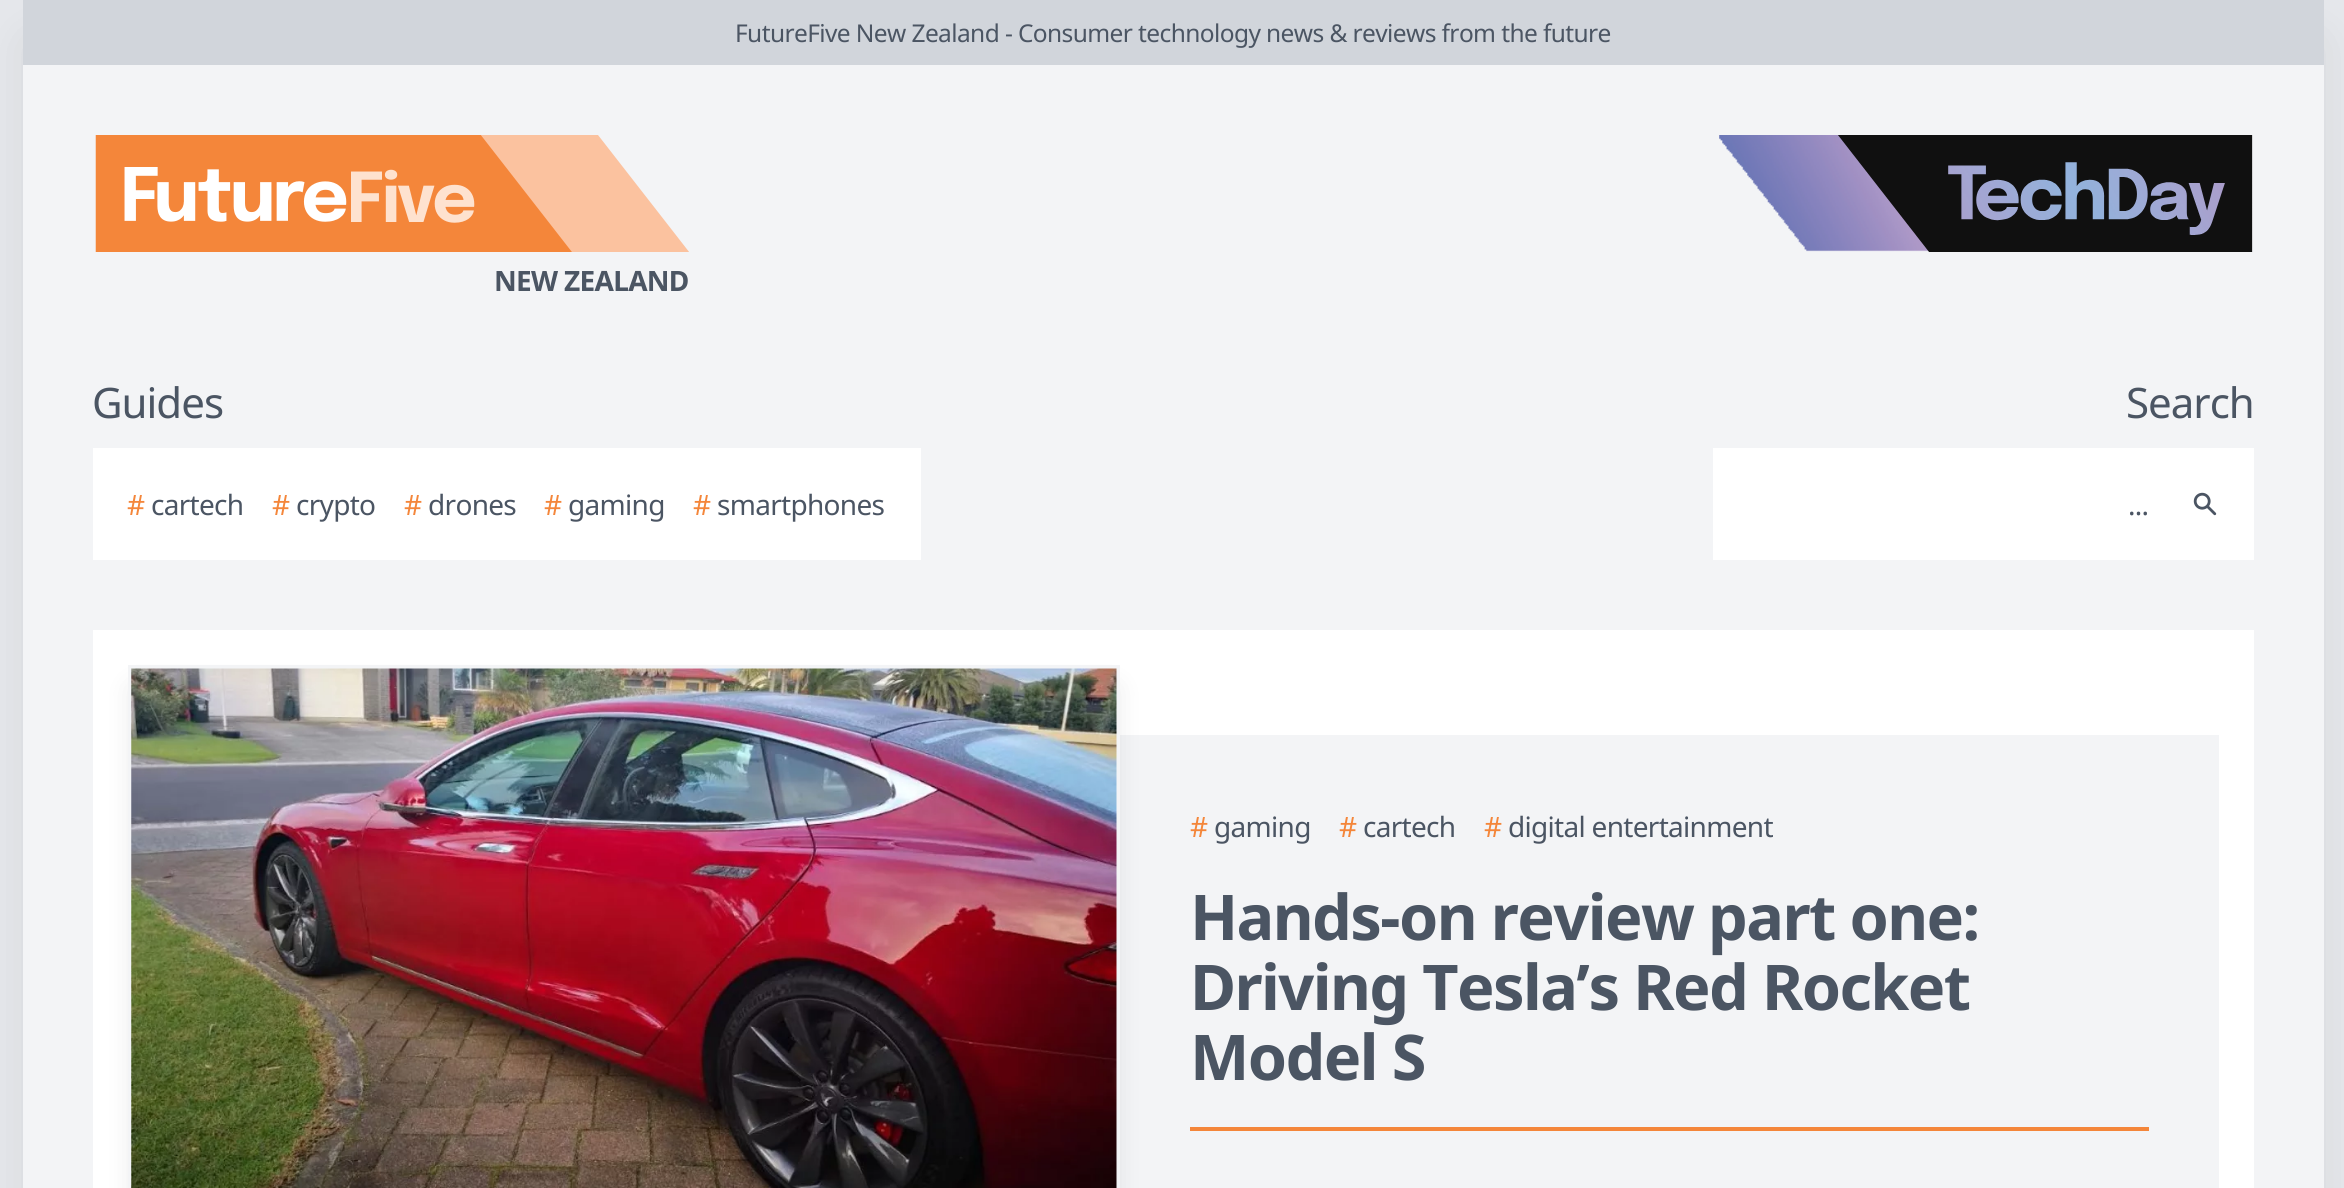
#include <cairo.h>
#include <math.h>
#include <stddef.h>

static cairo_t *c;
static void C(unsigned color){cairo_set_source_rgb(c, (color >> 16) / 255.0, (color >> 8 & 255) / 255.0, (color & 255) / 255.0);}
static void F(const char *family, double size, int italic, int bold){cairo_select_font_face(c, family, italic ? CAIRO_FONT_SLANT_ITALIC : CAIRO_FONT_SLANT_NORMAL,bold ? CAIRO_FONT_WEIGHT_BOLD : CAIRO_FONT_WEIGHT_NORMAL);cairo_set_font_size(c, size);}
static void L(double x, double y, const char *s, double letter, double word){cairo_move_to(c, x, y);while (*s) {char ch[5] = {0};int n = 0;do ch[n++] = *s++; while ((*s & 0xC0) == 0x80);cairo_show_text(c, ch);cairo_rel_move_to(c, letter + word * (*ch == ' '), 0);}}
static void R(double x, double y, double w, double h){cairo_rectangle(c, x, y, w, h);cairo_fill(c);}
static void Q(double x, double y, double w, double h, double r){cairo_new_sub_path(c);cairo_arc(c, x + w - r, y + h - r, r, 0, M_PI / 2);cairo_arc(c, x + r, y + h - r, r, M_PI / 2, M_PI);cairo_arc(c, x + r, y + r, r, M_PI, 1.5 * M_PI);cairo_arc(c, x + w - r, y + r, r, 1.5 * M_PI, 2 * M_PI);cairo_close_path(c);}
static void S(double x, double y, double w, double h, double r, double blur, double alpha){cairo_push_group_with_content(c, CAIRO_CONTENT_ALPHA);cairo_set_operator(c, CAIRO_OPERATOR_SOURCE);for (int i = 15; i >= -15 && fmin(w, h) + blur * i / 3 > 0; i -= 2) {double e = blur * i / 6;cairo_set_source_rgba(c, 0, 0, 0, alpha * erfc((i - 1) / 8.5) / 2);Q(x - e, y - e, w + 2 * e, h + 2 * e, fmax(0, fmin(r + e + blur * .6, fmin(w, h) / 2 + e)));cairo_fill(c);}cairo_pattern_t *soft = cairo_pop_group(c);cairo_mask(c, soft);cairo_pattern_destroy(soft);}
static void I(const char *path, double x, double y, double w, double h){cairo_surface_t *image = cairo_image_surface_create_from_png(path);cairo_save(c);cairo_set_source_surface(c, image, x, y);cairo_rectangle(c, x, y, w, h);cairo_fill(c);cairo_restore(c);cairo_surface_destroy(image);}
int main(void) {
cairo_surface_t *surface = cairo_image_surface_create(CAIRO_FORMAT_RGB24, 2344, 1188);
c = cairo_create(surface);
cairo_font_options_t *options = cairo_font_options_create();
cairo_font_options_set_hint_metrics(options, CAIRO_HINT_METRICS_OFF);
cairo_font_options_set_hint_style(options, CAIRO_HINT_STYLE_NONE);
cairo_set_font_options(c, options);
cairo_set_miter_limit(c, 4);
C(0xe5e7eb);
cairo_paint(c);
C(0x000000);
S(32,44,2283,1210,0,22,.1);
C(0xf3f4f6);
R(23,65,2301,1123);
C(0xd1d5db);
R(23,0,2301,65);
F("Noto Sans",24.5,0,0);
C(0x4b5563);
L(735,42,"FutureFive New Zealand - Consumer technology news & reviews from the future",-.6,0);
I("1.png",1719,135,534,117);
I("2.png",95,135,594,117);
F("Noto Sans",28,0,1);
L(494,291,"NEW ZEALAND",-.7,0);
F("Noto Sans",42,0,0);
L(92,418,"Guides",-1,0);
C(0xffffff);
R(93,448,828,112);
F("Noto Sans",28,0,0);
C(0xf4863a);
L(127,515,"#",-.7,0);
C(0x4b5563);
L(151,515,"cartech",-.7,0);
C(0xf4863a);
L(272,515,"#",-.7,0);
C(0x4b5563);
L(296,515,"crypto",-.7,0);
C(0xf4863a);
L(404,515,"#",-.7,0);
C(0x4b5563);
L(428,515,"drones",-.7,0);
C(0xf4863a);
L(544,515,"#",-.7,0);
C(0x4b5563);
L(568,515,"gaming",-.7,0);
C(0xf4863a);
L(693,515,"#",-.7,0);
C(0x4b5563);
L(717,515,"smartphones",-.7,0);
F("Noto Sans",42,0,0);
L(2126,418,"Search",-1,0);
C(0xffffff);
R(1713,448,541,112);
F("Noto Sans",28,0,0);
C(0x4b5563);
L(2128,515,"...",-.7,0);
I("3.png",2193,492,24,24);
C(0xffffff);
R(93,630,2161,558);
C(0xf3f4f6);
R(1120,735,1099,453);
C(0x000000);
S(133,688,982,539,0,13,.1);
cairo_rectangle(c,130,667,988,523);
C(0xf3f4f6);
cairo_set_line_width(c,4);
cairo_stroke(c);
I("4.png",131,668,986,520);
C(0xf4863a);
L(1190,837,"#",-.7,0);
C(0x4b5563);
L(1214,837,"gaming",-.7,0);
C(0xf4863a);
L(1339,837,"#",-.7,0);
C(0x4b5563);
L(1363,837,"cartech",-.7,0);
C(0xf4863a);
L(1484,837,"#",-.7,0);
C(0x4b5563);
L(1508,837,"digital entertainment",-.7,0);
F("Noto Sans",63,0,1);
L(1190,940,"Hands-on review part one:",-1.6,0);
L(1190,1010,"Driving Tesla’s Red Rocket",-1.6,0);
L(1190,1080,"Model S",-1.6,0);
C(0xf4863a);
R(1190,1127,959,4);
cairo_surface_write_to_png(surface, "o.png");
cairo_font_options_destroy(options);
cairo_destroy(c);
cairo_surface_destroy(surface);
return 0;
}
